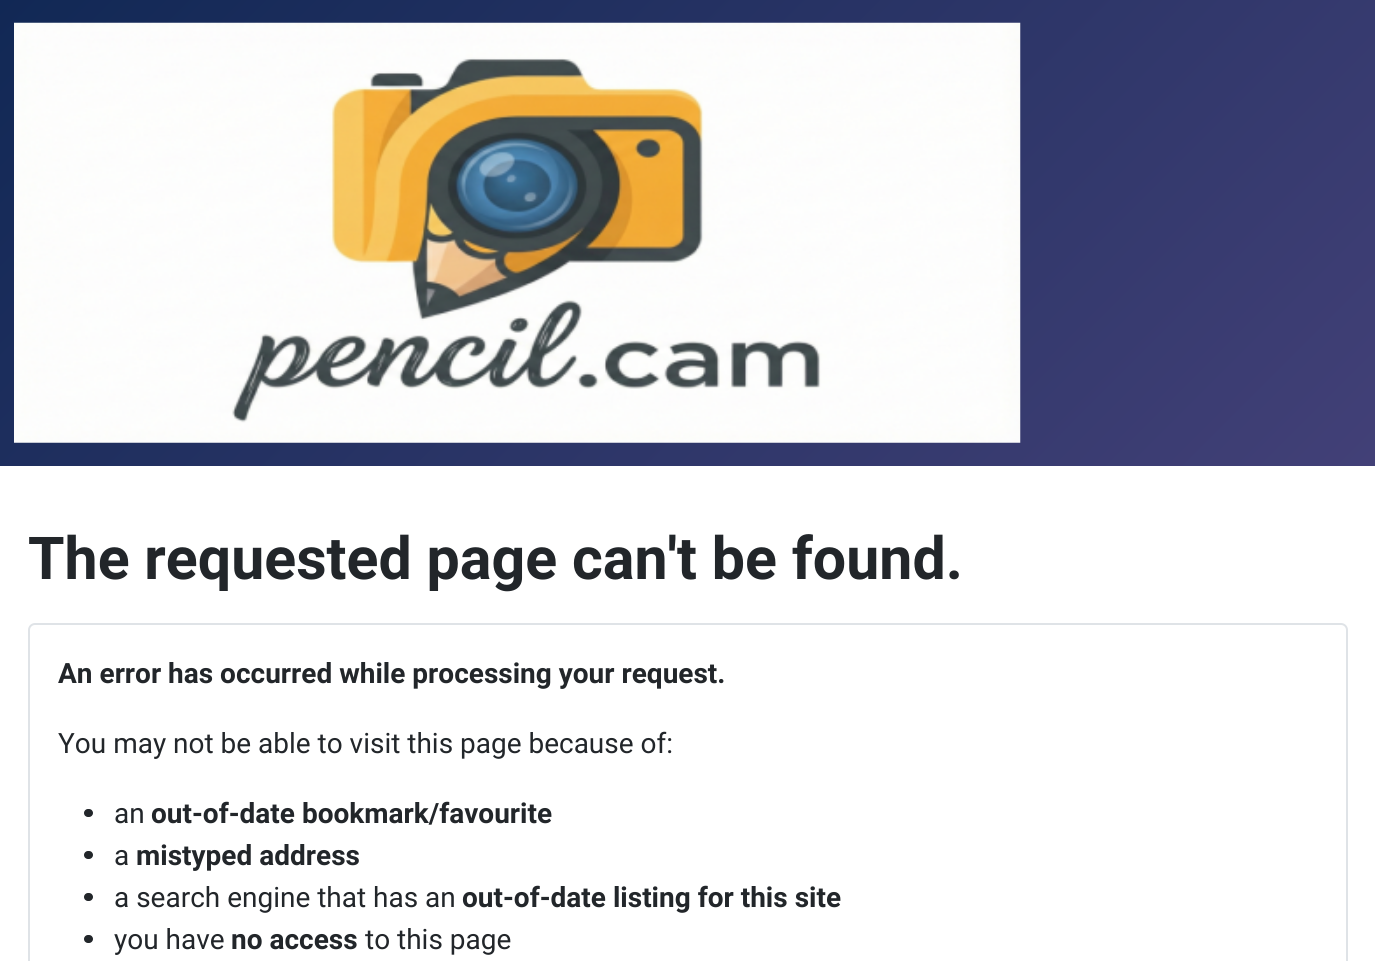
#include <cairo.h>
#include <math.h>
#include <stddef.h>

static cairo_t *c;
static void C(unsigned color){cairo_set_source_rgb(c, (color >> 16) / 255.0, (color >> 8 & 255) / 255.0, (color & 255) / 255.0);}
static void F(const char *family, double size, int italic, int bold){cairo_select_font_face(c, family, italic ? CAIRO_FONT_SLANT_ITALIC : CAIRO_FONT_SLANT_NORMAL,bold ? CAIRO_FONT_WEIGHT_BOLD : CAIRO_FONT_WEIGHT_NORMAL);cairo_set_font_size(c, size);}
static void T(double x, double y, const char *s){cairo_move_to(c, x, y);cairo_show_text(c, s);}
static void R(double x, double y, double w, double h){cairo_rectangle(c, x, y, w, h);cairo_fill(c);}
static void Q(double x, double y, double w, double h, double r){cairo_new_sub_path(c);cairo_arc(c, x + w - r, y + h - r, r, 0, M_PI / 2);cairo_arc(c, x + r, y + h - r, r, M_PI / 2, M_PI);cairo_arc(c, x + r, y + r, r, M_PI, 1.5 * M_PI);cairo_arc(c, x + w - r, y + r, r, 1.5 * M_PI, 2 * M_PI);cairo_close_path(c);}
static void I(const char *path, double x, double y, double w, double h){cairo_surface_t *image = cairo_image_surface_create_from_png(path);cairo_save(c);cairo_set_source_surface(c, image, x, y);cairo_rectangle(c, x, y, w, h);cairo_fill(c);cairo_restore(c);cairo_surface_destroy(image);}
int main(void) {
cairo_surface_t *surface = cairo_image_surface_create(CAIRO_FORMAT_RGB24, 1375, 961);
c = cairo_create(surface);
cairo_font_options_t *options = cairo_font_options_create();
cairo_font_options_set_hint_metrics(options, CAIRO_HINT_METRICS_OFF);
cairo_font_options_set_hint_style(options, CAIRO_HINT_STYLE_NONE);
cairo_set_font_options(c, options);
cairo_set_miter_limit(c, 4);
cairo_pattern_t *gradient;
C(0xffffff);
cairo_paint(c);
gradient = cairo_pattern_create_linear(227,-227,1148,693);
cairo_pattern_add_color_stop_rgba(gradient,0,0.067,0.157,0.333,1);
cairo_pattern_add_color_stop_rgba(gradient,1,0.259,0.251,0.467,1);
cairo_set_source(c,gradient);
cairo_pattern_destroy(gradient);
R(0,0,1375,466);
I("1.png",14,22,1007,421);
F("Roboto",59.1,0,1);
C(0x22262a);
T(28,579,"The requested page can't be found.");
Q(29,624,1318,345,6);
C(0xdfe3e7);
cairo_stroke(c);
F("Roboto",28,0,1);
C(0x22262a);
T(58,683,"An error has occurred while processing your request.");
F("Roboto",28,0,0);
T(58,753,"You may not be able to visit this page because of:");
Q(84,809,9,8,4);
cairo_fill(c);
T(114,823,"an");
F("Roboto",28,0,1);
T(151,823,"out-of-date bookmark/favourite");
Q(84,851,9,8,4);
cairo_fill(c);
F("Roboto",28,0,0);
T(114,865,"a");
F("Roboto",28,0,1);
T(136,865,"mistyped address");
Q(84,893,9,8,4);
cairo_fill(c);
F("Roboto",28,0,0);
T(114,907,"a search engine that has an");
F("Roboto",28,0,1);
T(462,907,"out-of-date listing for this site");
Q(84,935,9,8,4);
cairo_fill(c);
F("Roboto",28,0,0);
T(114,949,"you have");
F("Roboto",28,0,1);
T(231,949,"no access");
F("Roboto",28,0,0);
T(365,949,"to this page");
cairo_surface_write_to_png(surface, "o.png");
cairo_font_options_destroy(options);
cairo_destroy(c);
cairo_surface_destroy(surface);
return 0;
}
